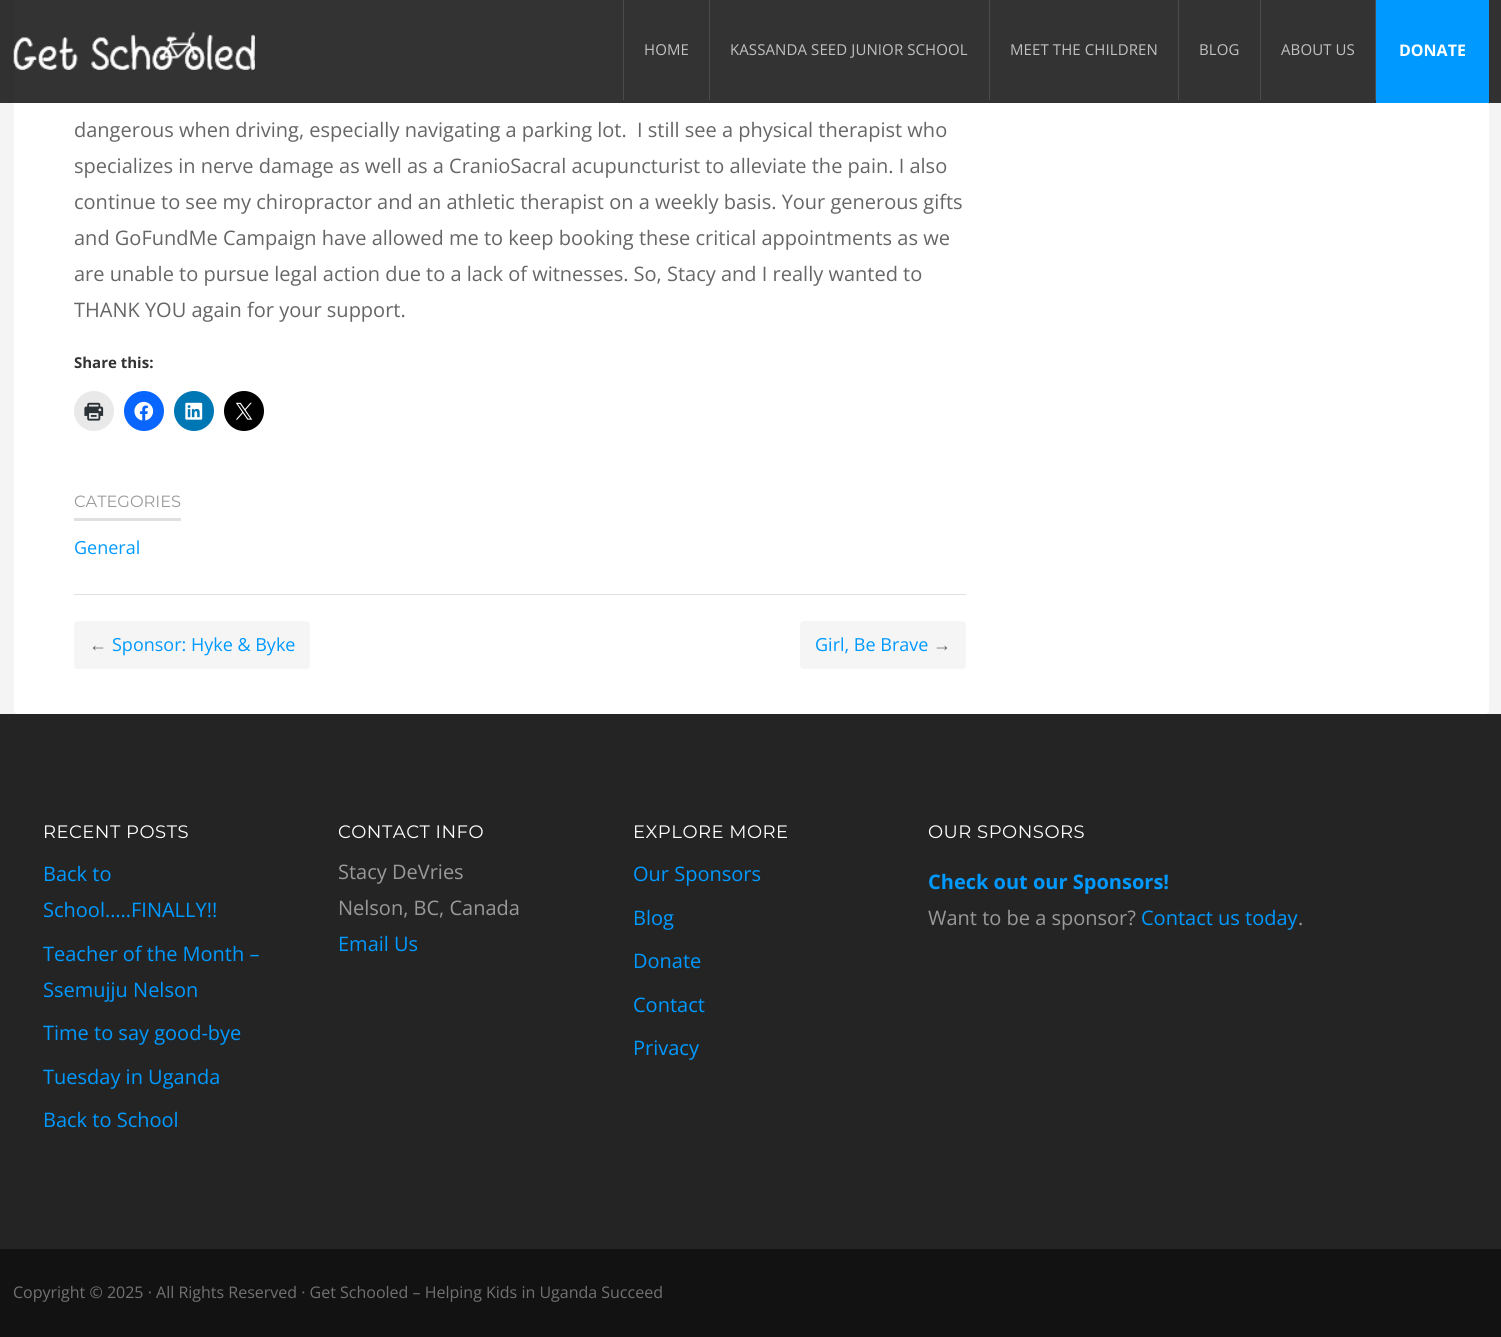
#include <cairo.h>
#include <math.h>
#include <stddef.h>

static cairo_t *c;
static void C(unsigned color){cairo_set_source_rgb(c, (color >> 16) / 255.0, (color >> 8 & 255) / 255.0, (color & 255) / 255.0);}
static void F(const char *family, double size, int italic, int bold){cairo_select_font_face(c, family, italic ? CAIRO_FONT_SLANT_ITALIC : CAIRO_FONT_SLANT_NORMAL,bold ? CAIRO_FONT_WEIGHT_BOLD : CAIRO_FONT_WEIGHT_NORMAL);cairo_set_font_size(c, size);}
static void T(double x, double y, const char *s){cairo_move_to(c, x, y);cairo_show_text(c, s);}
static void L(double x, double y, const char *s, double letter, double word){cairo_move_to(c, x, y);while (*s) {char ch[5] = {0};int n = 0;do ch[n++] = *s++; while ((*s & 0xC0) == 0x80);cairo_show_text(c, ch);cairo_rel_move_to(c, letter + word * (*ch == ' '), 0);}}
static void R(double x, double y, double w, double h){cairo_rectangle(c, x, y, w, h);cairo_fill(c);}
static void Q(double x, double y, double w, double h, double r){cairo_new_sub_path(c);cairo_arc(c, x + w - r, y + h - r, r, 0, M_PI / 2);cairo_arc(c, x + r, y + h - r, r, M_PI / 2, M_PI);cairo_arc(c, x + r, y + r, r, M_PI, 1.5 * M_PI);cairo_arc(c, x + w - r, y + r, r, 1.5 * M_PI, 2 * M_PI);cairo_close_path(c);}
static void I(const char *path, double x, double y, double w, double h){cairo_surface_t *image = cairo_image_surface_create_from_png(path);cairo_save(c);cairo_set_source_surface(c, image, x, y);cairo_rectangle(c, x, y, w, h);cairo_fill(c);cairo_restore(c);cairo_surface_destroy(image);}
int main(void) {
cairo_surface_t *surface = cairo_image_surface_create(CAIRO_FORMAT_RGB24, 1501, 1337);
c = cairo_create(surface);
cairo_font_options_t *options = cairo_font_options_create();
cairo_font_options_set_hint_metrics(options, CAIRO_HINT_METRICS_OFF);
cairo_font_options_set_hint_style(options, CAIRO_HINT_STYLE_NONE);
cairo_set_font_options(c, options);
cairo_set_miter_limit(c, 4);
C(0xf4f4f4);
cairo_paint(c);
C(0xffffff);
Q(14,-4,1475,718,4);
cairo_fill(c);
cairo_set_source_rgba(c,0,0,0,0.8);
R(0,0,1501,103);
I("1.png",13,31,242,39);
cairo_set_source_rgba(c,1,1,1,0.12);
R(623,0,1,100);
F("Open Sans",15,0,0);
C(0xc1c1c1);
L(644,55,"HOME",.1,0);
cairo_set_source_rgba(c,1,1,1,0.12);
R(709,0,1,100);
C(0xc1c1c1);
L(730,55,"KASSANDA SEED JUNIOR SCHOOL",.1,0);
C(0x4c4c4c);
R(989,0,1,100);
C(0xc1c1c1);
L(1010,55,"MEET THE CHILDREN",.1,0);
C(0x4c4c4c);
R(1178,0,1,100);
C(0xc1c1c1);
L(1199,55,"BLOG",.1,0);
C(0x4c4c4c);
R(1375,0,1,100);
R(1260,0,1,100);
C(0xc1c1c1);
L(1281,55,"ABOUT US",.1,0);
C(0x0099ff);
R(1376,0,113,103);
F("Open Sans",16,0,1);
C(0xffffff);
T(1399,56,"DONATE");
F("Open Sans",20,0,0);
C(0x666666);
T(74,137,"dangerous when driving, especially navigating a parking lot.");
T(637,137,"I still see a physical therapist who");
T(74,173,"specializes in nerve damage as well as a CranioSacral acupuncturist to alleviate the pain. I also");
T(74,209,"continue to see my chiropractor and an athletic therapist on a weekly basis. Your generous gifts");
T(74,245,"and GoFundMe Campaign have allowed me to keep booking these critical appointments as we");
T(74,281,"are unable to pursue legal action due to a lack of witnesses. So, Stacy and I really wanted to");
T(74,317,"THANK YOU again for your support.");
F("Open Sans",15,0,1);
C(0x333333);
T(74,368,"Share this:");
C(0xe9e9e9);
cairo_new_path(c);
cairo_arc(c,94,411,20,0,2 * M_PI);
cairo_fill(c);
I("2.png",84,402,20,19);
C(0x0866ff);
cairo_arc(c,144,411,20,0,2 * M_PI);
cairo_fill(c);
I("3.png",134,401,20,20);
C(0x0077b5);
cairo_arc(c,194,411,20,0,2 * M_PI);
cairo_fill(c);
I("4.png",185,402,18,18);
C(0x000000);
cairo_arc(c,244,411,20,0,2 * M_PI);
cairo_fill(c);
I("5.png",235,402,18,18);
C(0xe0e0e0);
R(74,594,892,1);
F("Montserrat",16.25,0,0);
C(0x999999);
T(74,507,"CATEGORIES");
C(0xe0e0e0);
R(74,518,107,3);
F("Open Sans",18,0,0);
C(0x0099ff);
T(74,554,"General");
C(0xf5f5f5);
Q(74,621,236,48,4);
cairo_fill(c);
F("Liberation Sans",18,0,0);
C(0x666666);
T(89,651,"←");
F("Open Sans",18,0,0);
C(0x0099ff);
T(112,651,"Sponsor: Hyke & Byke");
C(0xf5f5f5);
Q(800,621,166,48,4);
cairo_fill(c);
C(0x0099ff);
T(815,651,"Girl, Be Brave");
F("Liberation Sans",18,0,0);
C(0x666666);
T(933,651,"→");
C(0x242424);
R(0,714,1501,535);
F("Montserrat",18,0,0);
C(0xffffff);
L(43,838,"RECENT POSTS",.5,0);
F("Open Sans",20,0,0);
C(0x0099ff);
T(43,881,"Back to");
T(43,917,"School…..FINALLY!!");
T(43,961,"Teacher of the Month –");
T(43,997,"Ssemujju Nelson");
T(43,1040,"Time to say good-bye");
T(43,1084,"Tuesday in Uganda");
T(43,1127,"Back to School");
F("Montserrat",18,0,0);
C(0xffffff);
L(338,838,"CONTACT INFO",.5,0);
F("Open Sans",20,0,0);
C(0x999999);
T(338,879,"Stacy DeVries");
T(338,915,"Nelson, BC, Canada");
C(0x0099ff);
T(338,951,"Email Us");
F("Montserrat",18,0,0);
C(0xffffff);
L(633,838,"EXPLORE MORE",.5,0);
F("Open Sans",20,0,0);
C(0x0099ff);
T(633,881,"Our Sponsors");
T(633,925,"Blog");
T(633,968,"Donate");
T(633,1012,"Contact");
T(633,1055,"Privacy");
F("Montserrat",18,0,0);
C(0xffffff);
L(928,838,"OUR SPONSORS",.5,0);
F("Open Sans",20,0,1);
C(0x0099ff);
T(928,889,"Check out our Sponsors!");
F("Open Sans",20,0,0);
C(0x999999);
T(928,925,"Want to be a sponsor?");
C(0x0099ff);
T(1141,925,"Contact us today");
C(0x999999);
T(1298,925,".");
C(0x121212);
R(0,1249,1501,88);
F("Open Sans",16,0,0);
C(0x717171);
T(13,1298,"Copyright © 2025 · All Rights Reserved · Get Schooled – Helping Kids in Uganda Succeed");
cairo_surface_write_to_png(surface, "o.png");
cairo_font_options_destroy(options);
cairo_destroy(c);
cairo_surface_destroy(surface);
return 0;
}
